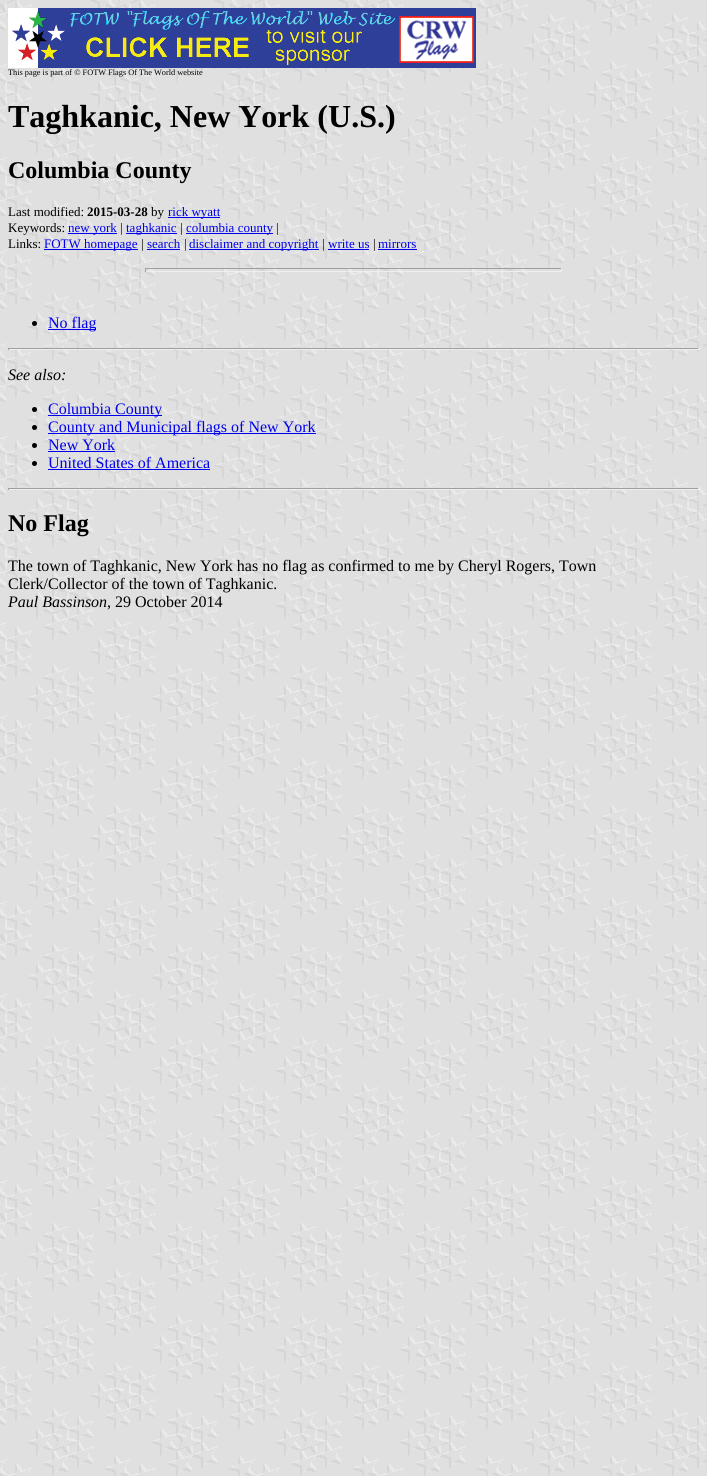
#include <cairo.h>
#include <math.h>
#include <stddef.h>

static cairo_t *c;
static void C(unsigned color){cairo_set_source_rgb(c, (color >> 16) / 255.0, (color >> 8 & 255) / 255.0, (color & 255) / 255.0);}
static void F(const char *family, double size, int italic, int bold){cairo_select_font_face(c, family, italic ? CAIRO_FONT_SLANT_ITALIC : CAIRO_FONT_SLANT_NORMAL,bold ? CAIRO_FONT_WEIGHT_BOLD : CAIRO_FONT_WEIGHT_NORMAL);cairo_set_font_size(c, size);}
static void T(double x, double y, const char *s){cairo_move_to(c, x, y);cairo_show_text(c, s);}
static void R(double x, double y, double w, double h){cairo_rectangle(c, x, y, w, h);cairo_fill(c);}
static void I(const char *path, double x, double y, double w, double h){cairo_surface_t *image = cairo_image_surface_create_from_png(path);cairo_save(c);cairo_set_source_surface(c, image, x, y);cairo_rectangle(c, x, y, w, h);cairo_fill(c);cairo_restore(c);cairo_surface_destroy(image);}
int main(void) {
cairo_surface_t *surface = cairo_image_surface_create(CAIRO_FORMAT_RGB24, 707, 1476);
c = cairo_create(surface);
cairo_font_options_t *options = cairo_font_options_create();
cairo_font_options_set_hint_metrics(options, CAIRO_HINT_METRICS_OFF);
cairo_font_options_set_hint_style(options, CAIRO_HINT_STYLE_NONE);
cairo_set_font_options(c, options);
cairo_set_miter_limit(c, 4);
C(0xffffff);
cairo_paint(c);
I("1.png",0,0,707,1476);
I("2.png",8,8,468,60);
F("Liberation Serif",8.3,0,0);
C(0x000000);
T(8,75,"This page is part of © FOTW Flags Of The World website");
F("Liberation Serif",32,0,1);
T(8,127,"Taghkanic, New York (U.S.)");
F("Liberation Serif",24,0,1);
T(8,178,"Columbia County");
F("Liberation Serif",13,0,0);
T(8,216,"Last modified:");
F("Liberation Serif",13,0,1);
T(87,216,"2015-03-28");
F("Liberation Serif",13,0,0);
T(151,216,"by");
C(0x0000ee);
R(168,217,52,1);
T(168,216,"rick wyatt");
C(0x000000);
T(8,232,"Keywords:");
C(0x0000ee);
R(68,233,49,1);
T(68,232,"new york");
C(0x000000);
T(120,232,"|");
C(0x0000ee);
R(126,233,51,1);
T(126,232,"taghkanic");
C(0x000000);
T(180,232,"|");
C(0x0000ee);
R(186,233,87,1);
T(186,232,"columbia county");
C(0x000000);
T(276,232,"|");
T(8,248,"Links:");
C(0x0000ee);
R(44,249,94,1);
T(44,248,"FOTW homepage");
C(0x000000);
T(141,248,"|");
C(0x0000ee);
T(147,248,"search");
R(147,249,33,1);
C(0x000000);
T(184,248,"|");
C(0x0000ee);
R(189,249,130,1);
T(189,248,"disclaimer and copyright");
C(0x000000);
T(322,248,"|");
C(0x0000ee);
T(328,248,"write us");
R(328,249,41,1);
C(0x000000);
T(373,248,"|");
C(0x0000ee);
T(378,248,"mirrors");
R(378,249,39,1);
C(0x9f9f9f);
R(145,268,417,1);
C(0xeeeeee);
R(561,268,1,4);
R(145,271,417,1);
C(0x9f9f9f);
R(145,268,1,4);
C(0x000000);
cairo_new_path(c);
cairo_arc(c,34.5,323.5,2.5,0,2 * M_PI);
cairo_fill(c);
C(0x0000ee);
R(48,329,48,1);
F("Liberation Serif",16,0,0);
T(48,328,"No flag");
C(0x9f9f9f);
R(8,348,691,1);
C(0xeeeeee);
R(698,348,1,2);
R(8,349,691,1);
C(0x9f9f9f);
R(8,348,1,2);
F("Liberation Serif",16,1,0);
C(0x000000);
T(8,380,"See also:");
cairo_new_path(c);
cairo_arc(c,34.5,409.5,2.5,0,2 * M_PI);
cairo_fill(c);
C(0x0000ee);
R(48,415,114,1);
F("Liberation Serif",16,0,0);
T(48,414,"Columbia County");
C(0x000000);
cairo_new_path(c);
cairo_arc(c,34.5,427.5,2.5,0,2 * M_PI);
cairo_fill(c);
C(0x0000ee);
R(48,433,268,1);
T(48,432,"County and Municipal flags of New York");
C(0x000000);
cairo_new_path(c);
cairo_arc(c,34.5,445.5,2.5,0,2 * M_PI);
cairo_fill(c);
C(0x0000ee);
T(48,450,"New York");
R(48,451,67,1);
C(0x000000);
cairo_new_path(c);
cairo_arc(c,34.5,463.5,2.5,0,2 * M_PI);
cairo_fill(c);
C(0x0000ee);
T(48,468,"United States of America");
R(48,469,162,1);
C(0x9f9f9f);
R(8,488,691,1);
C(0xeeeeee);
R(698,488,1,2);
R(8,489,691,1);
C(0x9f9f9f);
R(8,488,1,2);
F("Liberation Serif",24,0,1);
C(0x000000);
T(8,531,"No Flag");
F("Liberation Serif",16,0,0);
T(8,571,"The town of Taghkanic, New York has no flag as confirmed to me by Cheryl Rogers, Town");
T(8,589,"Clerk/Collector of the town of Taghkanic.");
F("Liberation Serif",16,1,0);
T(8,607,"Paul Bassinson");
F("Liberation Serif",16,0,0);
T(107,607,", 29 October 2014");
cairo_surface_write_to_png(surface, "o.png");
cairo_font_options_destroy(options);
cairo_destroy(c);
cairo_surface_destroy(surface);
return 0;
}
